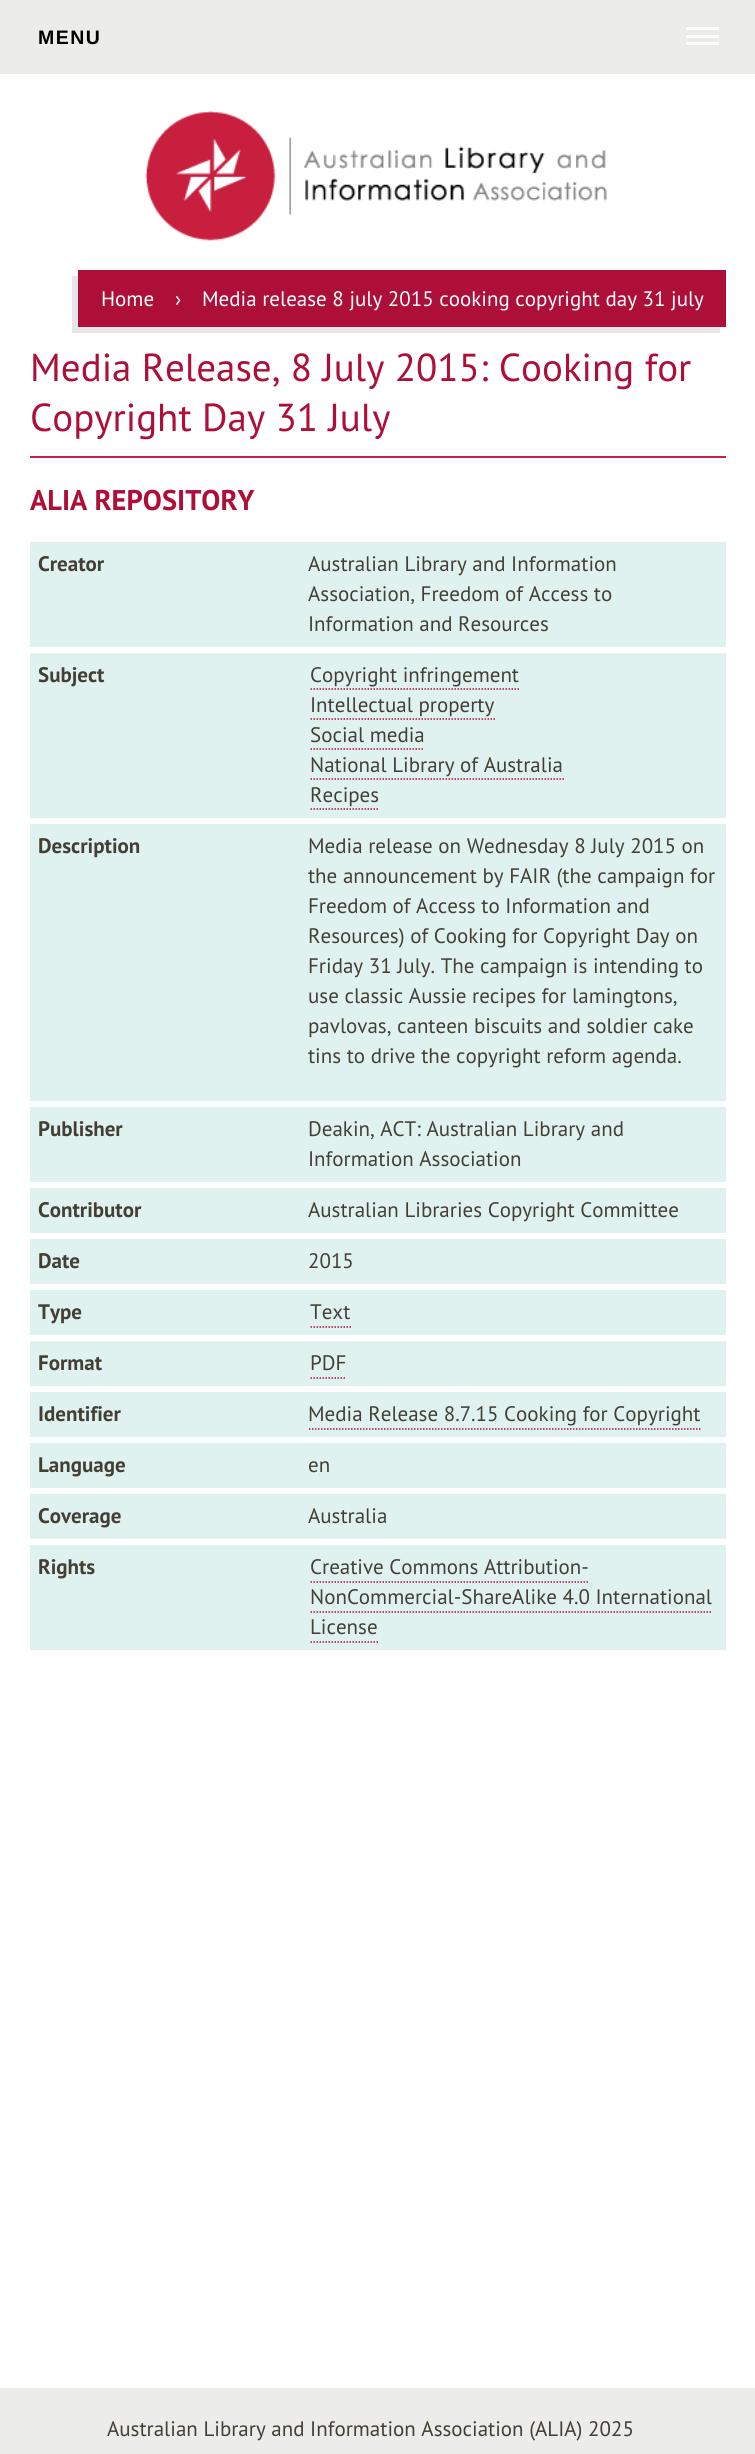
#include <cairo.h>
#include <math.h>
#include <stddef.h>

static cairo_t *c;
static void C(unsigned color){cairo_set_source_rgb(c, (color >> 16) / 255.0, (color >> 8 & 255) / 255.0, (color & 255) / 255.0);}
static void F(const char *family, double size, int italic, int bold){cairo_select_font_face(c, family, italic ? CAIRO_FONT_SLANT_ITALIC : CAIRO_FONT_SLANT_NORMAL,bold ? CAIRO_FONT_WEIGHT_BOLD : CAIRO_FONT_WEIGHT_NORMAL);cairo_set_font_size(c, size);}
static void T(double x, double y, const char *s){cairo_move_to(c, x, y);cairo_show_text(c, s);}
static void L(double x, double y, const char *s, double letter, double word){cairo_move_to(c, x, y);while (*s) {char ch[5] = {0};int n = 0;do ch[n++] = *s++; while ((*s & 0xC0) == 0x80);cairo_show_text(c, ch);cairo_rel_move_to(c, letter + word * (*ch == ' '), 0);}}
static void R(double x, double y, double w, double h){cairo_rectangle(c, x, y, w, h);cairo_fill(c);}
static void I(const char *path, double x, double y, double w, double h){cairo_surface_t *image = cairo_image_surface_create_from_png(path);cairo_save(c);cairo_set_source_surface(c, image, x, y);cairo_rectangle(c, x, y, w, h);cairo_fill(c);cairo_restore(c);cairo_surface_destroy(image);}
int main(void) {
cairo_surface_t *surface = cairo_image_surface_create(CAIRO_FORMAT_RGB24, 755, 2454);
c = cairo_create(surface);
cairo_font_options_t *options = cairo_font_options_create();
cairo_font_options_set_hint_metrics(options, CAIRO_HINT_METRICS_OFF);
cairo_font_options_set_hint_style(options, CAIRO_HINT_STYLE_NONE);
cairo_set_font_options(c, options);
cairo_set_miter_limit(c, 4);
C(0xffffff);
cairo_paint(c);
C(0xececeb);
R(0,0,755,74);
F("Liberation Sans",19.5,0,1);
C(0x000000);
L(38,44,"MENU",1.5,0);
C(0xffffff);
R(686,27,33,3);
R(686,35,33,3);
R(686,42,33,3);
I("1.png",145,111,462,130);
C(0xe6e6e6);
cairo_new_path(c);
cairo_move_to(c,72,276);
cairo_line_to(c,72,333);
cairo_line_to(c,720,333);
cairo_line_to(c,720,327);
cairo_line_to(c,78,327);
cairo_line_to(c,78,276);
cairo_close_path(c);
cairo_fill(c);
C(0xae0f38);
R(78,270,648,57);
F("PT Sans",21,0,0);
C(0xffffff);
T(101,306,"Home");
T(175,306,"›");
T(202,306,"Media release 8 july 2015 cooking copyright day 31 july");
C(0xc32441);
R(30,456,696,2);
F("PT Sans",39,0,0);
C(0xae0f38);
T(30,381,"Media Release, 8 July 2015: Cooking for");
T(30,431,"Copyright Day 31 July");
F("PT Sans",28.5,0,1);
T(30,510,"ALIA REPOSITORY");
C(0xe0f2f0);
R(30,542,696,105);
F("PT Sans",21,0,1);
C(0x443f35);
T(38,571,"Creator");
F("PT Sans",21,0,0);
T(308,571,"Australian Library and Information");
T(308,601,"Association, Freedom of Access to");
T(308,631,"Information and Resources");
C(0xe0f2f0);
R(30,653,696,165);
F("PT Sans",21,0,1);
C(0x443f35);
T(38,682,"Subject");
F("PT Sans",21,0,0);
T(310,682,"Copyright infringement");
cairo_new_path(c);
cairo_move_to(c,310.5,689);
cairo_line_to(c,519,689);
C(0xae0f38);
cairo_set_line_width(c,1.5);
cairo_set_dash(c,(double[]){1.5,1.5},2,0);
cairo_stroke(c);
C(0x443f35);
T(310,712,"Intellectual property");
cairo_new_path(c);
cairo_move_to(c,310.5,719);
cairo_line_to(c,495,719);
C(0xae0f38);
cairo_stroke(c);
C(0x443f35);
T(310,742,"Social media");
cairo_new_path(c);
cairo_move_to(c,310.5,749);
cairo_line_to(c,424.5,749);
C(0xae0f38);
cairo_stroke(c);
C(0x443f35);
T(310,772,"National Library of Australia");
cairo_new_path(c);
cairo_move_to(c,310.5,779);
cairo_line_to(c,564,779);
C(0xae0f38);
cairo_stroke(c);
C(0x443f35);
T(310,802,"Recipes");
cairo_new_path(c);
cairo_move_to(c,310.5,809);
cairo_line_to(c,379.5,809);
C(0xae0f38);
cairo_stroke(c);
C(0xe0f2f0);
R(30,824,696,277);
F("PT Sans",21,0,1);
C(0x443f35);
T(38,853,"Description");
F("PT Sans",21,0,0);
T(308,853,"Media release on Wednesday 8 July 2015 on");
T(308,883,"the announcement by FAIR (the campaign for");
T(308,913,"Freedom of Access to Information and");
T(308,943,"Resources) of Cooking for Copyright Day on");
T(308,973,"Friday 31 July. The campaign is intending to");
T(308,1003,"use classic Aussie recipes for lamingtons,");
T(308,1033,"pavlovas, canteen biscuits and soldier cake");
T(308,1063,"tins to drive the copyright reform agenda.");
C(0xe0f2f0);
R(30,1107,696,75);
F("PT Sans",21,0,1);
C(0x443f35);
T(38,1136,"Publisher");
F("PT Sans",21,0,0);
T(308,1136,"Deakin, ACT: Australian Library and");
T(308,1166,"Information Association");
C(0xe0f2f0);
R(30,1188,696,45);
F("PT Sans",21,0,1);
C(0x443f35);
T(38,1217,"Contributor");
F("PT Sans",21,0,0);
T(308,1217,"Australian Libraries Copyright Committee");
C(0xe0f2f0);
R(30,1239,696,45);
F("PT Sans",21,0,1);
C(0x443f35);
T(38,1268,"Date");
F("PT Sans",21,0,0);
T(308,1268,"2015");
C(0xe0f2f0);
R(30,1290,696,45);
F("PT Sans",21,0,1);
C(0x443f35);
T(38,1319,"Type");
F("PT Sans",21,0,0);
T(310,1319,"Text");
cairo_new_path(c);
cairo_move_to(c,310.5,1327);
cairo_line_to(c,351,1327);
C(0xae0f38);
cairo_stroke(c);
C(0xe0f2f0);
R(30,1341,696,45);
F("PT Sans",21,0,1);
C(0x443f35);
T(38,1370,"Format");
F("PT Sans",21,0,0);
T(310,1370,"PDF");
cairo_new_path(c);
cairo_move_to(c,310.5,1378);
cairo_line_to(c,346.5,1378);
C(0xae0f38);
cairo_stroke(c);
C(0xe0f2f0);
R(30,1392,696,45);
F("PT Sans",21,0,1);
C(0x443f35);
T(38,1421,"Identifier");
F("PT Sans",21,0,0);
T(308,1421,"Media Release 8.7.15 Cooking for Copyright");
cairo_new_path(c);
cairo_move_to(c,309,1429);
cairo_line_to(c,700.5,1429);
C(0xae0f38);
cairo_stroke(c);
C(0xe0f2f0);
R(30,1443,696,45);
F("PT Sans",21,0,1);
C(0x443f35);
T(38,1472,"Language");
F("PT Sans",21,0,0);
T(308,1472,"en");
C(0xe0f2f0);
R(30,1494,696,45);
F("PT Sans",21,0,1);
C(0x443f35);
T(38,1523,"Coverage");
F("PT Sans",21,0,0);
T(308,1523,"Australia");
C(0xe0f2f0);
R(30,1545,696,105);
F("PT Sans",21,0,1);
C(0x443f35);
T(38,1574,"Rights");
F("PT Sans",21,0,0);
T(310,1574,"Creative Commons Attribution-");
cairo_new_path(c);
cairo_move_to(c,310.5,1582);
cairo_line_to(c,589.5,1582);
C(0xae0f38);
cairo_stroke(c);
C(0x443f35);
T(310,1604,"NonCommercial-ShareAlike 4.0 International");
cairo_new_path(c);
cairo_move_to(c,310.5,1612);
cairo_line_to(c,712.5,1612);
C(0xae0f38);
cairo_stroke(c);
C(0x443f35);
T(310,1634,"License");
cairo_new_path(c);
cairo_move_to(c,310.5,1642);
cairo_line_to(c,378,1642);
C(0xae0f38);
cairo_stroke(c);
C(0xececeb);
R(0,2388,755,66);
C(0x443f35);
T(107,2436,"Australian Library and Information Association (ALIA) 2025");
cairo_surface_write_to_png(surface, "o.png");
cairo_font_options_destroy(options);
cairo_destroy(c);
cairo_surface_destroy(surface);
return 0;
}
